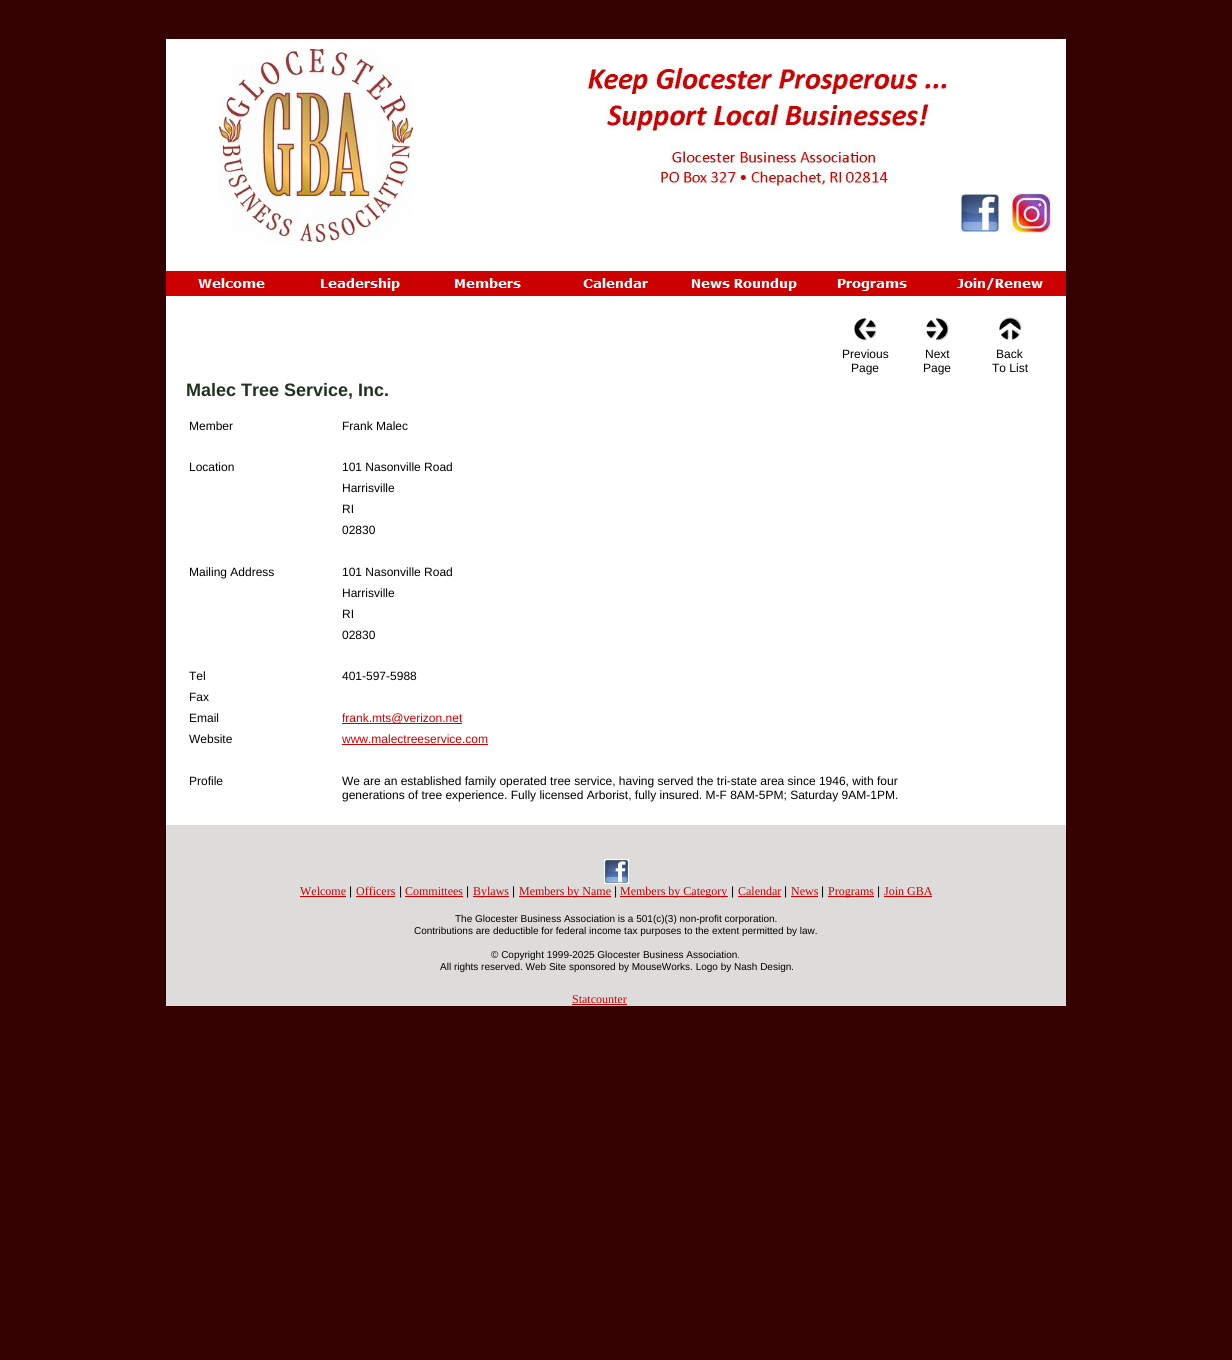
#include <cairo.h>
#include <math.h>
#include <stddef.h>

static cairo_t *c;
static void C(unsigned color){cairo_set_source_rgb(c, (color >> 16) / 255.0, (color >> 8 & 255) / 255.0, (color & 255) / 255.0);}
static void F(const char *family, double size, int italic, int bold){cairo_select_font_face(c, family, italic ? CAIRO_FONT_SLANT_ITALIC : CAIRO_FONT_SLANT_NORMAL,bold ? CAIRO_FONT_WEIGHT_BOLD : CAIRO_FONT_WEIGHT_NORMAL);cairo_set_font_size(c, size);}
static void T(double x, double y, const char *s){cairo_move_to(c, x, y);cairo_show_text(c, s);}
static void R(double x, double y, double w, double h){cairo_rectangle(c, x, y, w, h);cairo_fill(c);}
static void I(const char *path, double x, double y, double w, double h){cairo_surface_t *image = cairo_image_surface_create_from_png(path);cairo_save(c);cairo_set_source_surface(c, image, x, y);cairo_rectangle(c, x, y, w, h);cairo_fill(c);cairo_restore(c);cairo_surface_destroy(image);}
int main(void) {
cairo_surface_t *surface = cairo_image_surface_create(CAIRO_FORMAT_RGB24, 1232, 1360);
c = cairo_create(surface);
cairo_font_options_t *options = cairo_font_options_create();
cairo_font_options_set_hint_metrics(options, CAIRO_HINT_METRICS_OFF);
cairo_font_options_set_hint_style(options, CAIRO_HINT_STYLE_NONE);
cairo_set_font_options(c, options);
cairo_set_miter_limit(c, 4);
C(0x350000);
cairo_paint(c);
C(0xffffff);
R(166,39,900,232);
I("1.png",219,49,194,193);
I("2.png",582,65,368,126);
I("3.png",960,193,40,40);
I("4.png",1011,193,40,40);
C(0xcc0000);
R(166,271,900,25);
I("5.png",197,271,70,17);
I("6.png",319,271,82,24);
I("7.png",453,271,70,24);
I("8.png",581,271,68,24);
I("9.png",688,278,111,17);
I("10.png",826,279,83,16);
I("11.png",952,271,96,24);
C(0xffffff);
R(166,296,900,529);
I("12.png",854,318,23,23);
I("13.png",926,318,23,23);
I("14.png",999,317,23,23);
F("Liberation Sans",12,0,0);
C(0x000000);
T(842,358,"Previous");
T(851,372,"Page");
T(925,358,"Next");
T(923,372,"Page");
T(996,358,"Back");
T(992,372,"To List");
F("Liberation Sans",18,0,1);
C(0x1f331f);
T(186,396,"Malec Tree Service, Inc.");
F("Liberation Sans",12,0,0);
C(0x000000);
T(189,430,"Member");
T(342,430,"Frank Malec");
T(189,471,"Location");
T(342,471,"101 Nasonville Road");
T(342,492,"Harrisville");
T(342,513,"RI");
T(342,534,"02830");
T(189,576,"Mailing Address");
T(342,576,"101 Nasonville Road");
T(342,597,"Harrisville");
T(342,618,"RI");
T(342,639,"02830");
T(189,680,"Tel");
T(342,680,"401-597-5988");
T(189,701,"Fax");
T(189,722,"Email");
C(0xcc0000);
R(342,723,120,1);
T(342,722,"frank.mts@verizon.net");
C(0x000000);
T(189,743,"Website");
C(0xcc0000);
T(342,743,"www.malectreeservice.com");
R(342,744,146,1);
C(0x000000);
T(189,785,"Profile");
T(342,785,"We are an established family operated tree service, having served the tri-state area since 1946, with four");
T(342,799,"generations of tree experience. Fully licensed Arborist, fully insured. M-F 8AM-5PM; Saturday 9AM-1PM.");
C(0xdedbdb);
R(166,825,900,181);
I("15.png",604,859,25,25);
F("Liberation Serif",12,0,0);
C(0xcc0000);
T(300,895,"Welcome");
R(300,896,46,1);
F("Liberation Sans",12,0,0);
C(0x000000);
T(349,895,"|");
F("Liberation Serif",12,0,0);
C(0xcc0000);
T(356,895,"Officers");
R(356,896,39,1);
F("Liberation Sans",12,0,0);
C(0x000000);
T(399,895,"|");
F("Liberation Serif",12,0,0);
C(0xcc0000);
T(405,895,"Committees");
R(405,896,58,1);
F("Liberation Sans",12,0,0);
C(0x000000);
T(466,895,"|");
C(0xcc0000);
R(473,896,36,1);
F("Liberation Serif",12,0,0);
T(473,895,"Bylaws");
F("Liberation Sans",12,0,0);
C(0x000000);
T(512,895,"|");
C(0xcc0000);
R(519,896,92,1);
F("Liberation Serif",12,0,0);
T(519,895,"Members by Name");
F("Liberation Sans",12,0,0);
C(0x000000);
T(614,895,"|");
C(0xcc0000);
R(620,896,108,1);
F("Liberation Serif",12,0,0);
T(620,895,"Members by Category");
F("Liberation Sans",12,0,0);
C(0x000000);
T(731,895,"|");
F("Liberation Serif",12,0,0);
C(0xcc0000);
T(738,895,"Calendar");
R(738,896,43,1);
F("Liberation Sans",12,0,0);
C(0x000000);
T(784,895,"|");
F("Liberation Serif",12,0,0);
C(0xcc0000);
T(791,895,"News");
R(791,896,27,1);
F("Liberation Sans",12,0,0);
C(0x000000);
T(821,895,"|");
C(0xcc0000);
R(828,896,46,1);
F("Liberation Serif",12,0,0);
T(828,895,"Programs");
F("Liberation Sans",12,0,0);
C(0x000000);
T(877,895,"|");
F("Liberation Serif",12,0,0);
C(0xcc0000);
T(884,895,"Join GBA");
R(884,896,48,1);
F("Liberation Sans",10,0,0);
C(0x000000);
T(455,922,"The Glocester Business Association is a 501(c)(3) non-profit corporation.");
T(414,934,"Contributions are deductible for federal income tax purposes to the extent permitted by law.");
T(491,958,"© Copyright 1999-2025 Glocester Business Association.");
T(440,970,"All rights reserved. Web Site sponsored by MouseWorks. Logo by Nash Design.");
F("Liberation Serif",12,0,0);
C(0xcc0000);
T(572,1003,"Statcounter");
R(572,1004,55,1);
cairo_surface_write_to_png(surface, "o.png");
cairo_font_options_destroy(options);
cairo_destroy(c);
cairo_surface_destroy(surface);
return 0;
}
